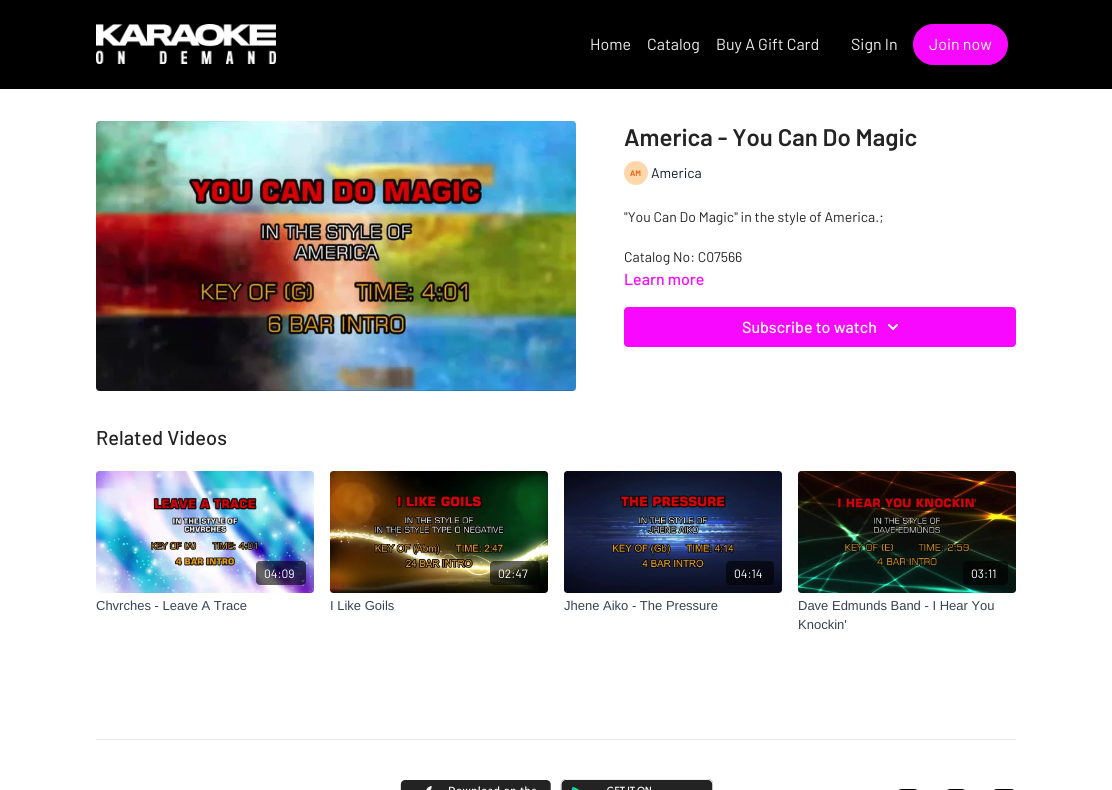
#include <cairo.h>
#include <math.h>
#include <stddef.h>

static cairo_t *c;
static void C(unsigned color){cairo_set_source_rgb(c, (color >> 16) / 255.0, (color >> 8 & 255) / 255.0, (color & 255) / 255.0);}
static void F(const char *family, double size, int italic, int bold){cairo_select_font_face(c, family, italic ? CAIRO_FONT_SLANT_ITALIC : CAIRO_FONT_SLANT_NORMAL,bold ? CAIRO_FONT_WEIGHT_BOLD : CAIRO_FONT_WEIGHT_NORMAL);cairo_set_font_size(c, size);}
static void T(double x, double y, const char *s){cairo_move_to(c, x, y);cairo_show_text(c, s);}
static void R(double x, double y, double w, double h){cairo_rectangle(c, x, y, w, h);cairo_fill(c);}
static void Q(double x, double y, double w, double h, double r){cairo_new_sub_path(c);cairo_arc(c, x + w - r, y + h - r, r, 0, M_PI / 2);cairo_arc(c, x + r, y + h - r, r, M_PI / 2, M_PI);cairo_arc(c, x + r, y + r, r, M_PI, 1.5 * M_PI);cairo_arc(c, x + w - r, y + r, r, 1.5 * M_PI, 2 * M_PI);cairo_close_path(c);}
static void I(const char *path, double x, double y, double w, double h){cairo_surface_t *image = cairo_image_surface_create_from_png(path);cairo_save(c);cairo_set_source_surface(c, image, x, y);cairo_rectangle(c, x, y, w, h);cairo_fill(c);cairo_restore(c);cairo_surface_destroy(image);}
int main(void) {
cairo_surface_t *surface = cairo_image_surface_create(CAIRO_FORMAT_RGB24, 1112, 790);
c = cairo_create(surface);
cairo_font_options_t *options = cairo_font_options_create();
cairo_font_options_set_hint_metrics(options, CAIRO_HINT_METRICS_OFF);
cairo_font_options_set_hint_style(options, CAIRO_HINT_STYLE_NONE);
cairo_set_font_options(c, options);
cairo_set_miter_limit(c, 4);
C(0xffffff);
cairo_paint(c);
C(0x000000);
R(0,0,1112,89);
I("1.png",96,24,180,40);
F("Barlow",16,0,0);
C(0xeeeeee);
T(590,50,"Home");
T(647,50,"Catalog");
T(716,50,"Buy A Gift Card");
T(851,50,"Sign In");
C(0xf808ff);
Q(913.5,24.5,94,40,20);
cairo_fill_preserve(c);
cairo_set_line_width(c,1);
cairo_stroke(c);
C(0xffffff);
T(929,50,"Join now");
I("2.png",96,121,480,270);
F("Barlow SemiBold",24,0,0);
C(0x232323);
T(624,146,"America - You Can Do Magic");
C(0xfed7aa);
cairo_new_path(c);
cairo_arc(c,636,173,12,0,2 * M_PI);
cairo_fill(c);
F("Barlow SemiBold",8,0,0);
C(0xea580c);
T(630,176,"AM");
F("Barlow",14,0,0);
C(0x111827);
T(651,178,"America");
C(0x232323);
T(624,222,"\"You Can Do Magic\" in the style of America.;");
T(624,262,"Catalog No: C07566");
F("Barlow Medium",16,0,0);
C(0xf808ff);
T(624,285,"Learn more");
Q(624,307,392,40,4);
cairo_fill(c);
C(0xffffff);
T(742,333,"Subscribe to watch");
I("3.png",888,324,10,6);
F("Barlow Medium",20,0,0);
C(0x232323);
T(96,445,"Related Videos");
I("4.png",96,471,218,122);
cairo_set_source_rgba(c,0,0,0,0.6);
Q(256,561,50,24,4);
cairo_fill(c);
F("Barlow",12,0,0);
C(0xffffff);
T(264,578,"04:09");
F("Liberation Sans",13,0,0);
C(0x374151);
T(96,610,"Chvrches - Leave A Trace");
I("5.png",330,471,218,122);
cairo_set_source_rgba(c,0,0,0,0.6);
Q(490,561,50,24,4);
cairo_fill(c);
F("Barlow",12,0,0);
C(0xffffff);
T(498,578,"02:47");
F("Liberation Sans",13,0,0);
C(0x374151);
T(330,610,"I Like Goils");
I("6.png",564,471,218,122);
cairo_set_source_rgba(c,0,0,0,0.6);
Q(726,561,48,24,4);
cairo_fill(c);
F("Barlow",12,0,0);
C(0xffffff);
T(734,578,"04:14");
F("Liberation Sans",13,0,0);
C(0x374151);
T(564,610,"Jhene Aiko - The Pressure");
I("7.png",798,471,218,122);
cairo_set_source_rgba(c,0,0,0,0.6);
Q(963,561,45,24,4);
cairo_fill(c);
F("Barlow",12,0,0);
C(0xffffff);
T(971,578,"03:11");
F("Liberation Sans",13,0,0);
C(0x374151);
T(798,610,"Dave Edmunds Band - I Hear You");
T(798,629,"Knockin'");
C(0xe9e9e9);
R(96,739,920,1);
I("8.png",400,780,151,10);
I("9.png",560,779,154,11);
I("10.png",898,789,20,1);
I("11.png",947,789,18,1);
I("12.png",994,789,20,1);
cairo_surface_write_to_png(surface, "o.png");
cairo_font_options_destroy(options);
cairo_destroy(c);
cairo_surface_destroy(surface);
return 0;
}
